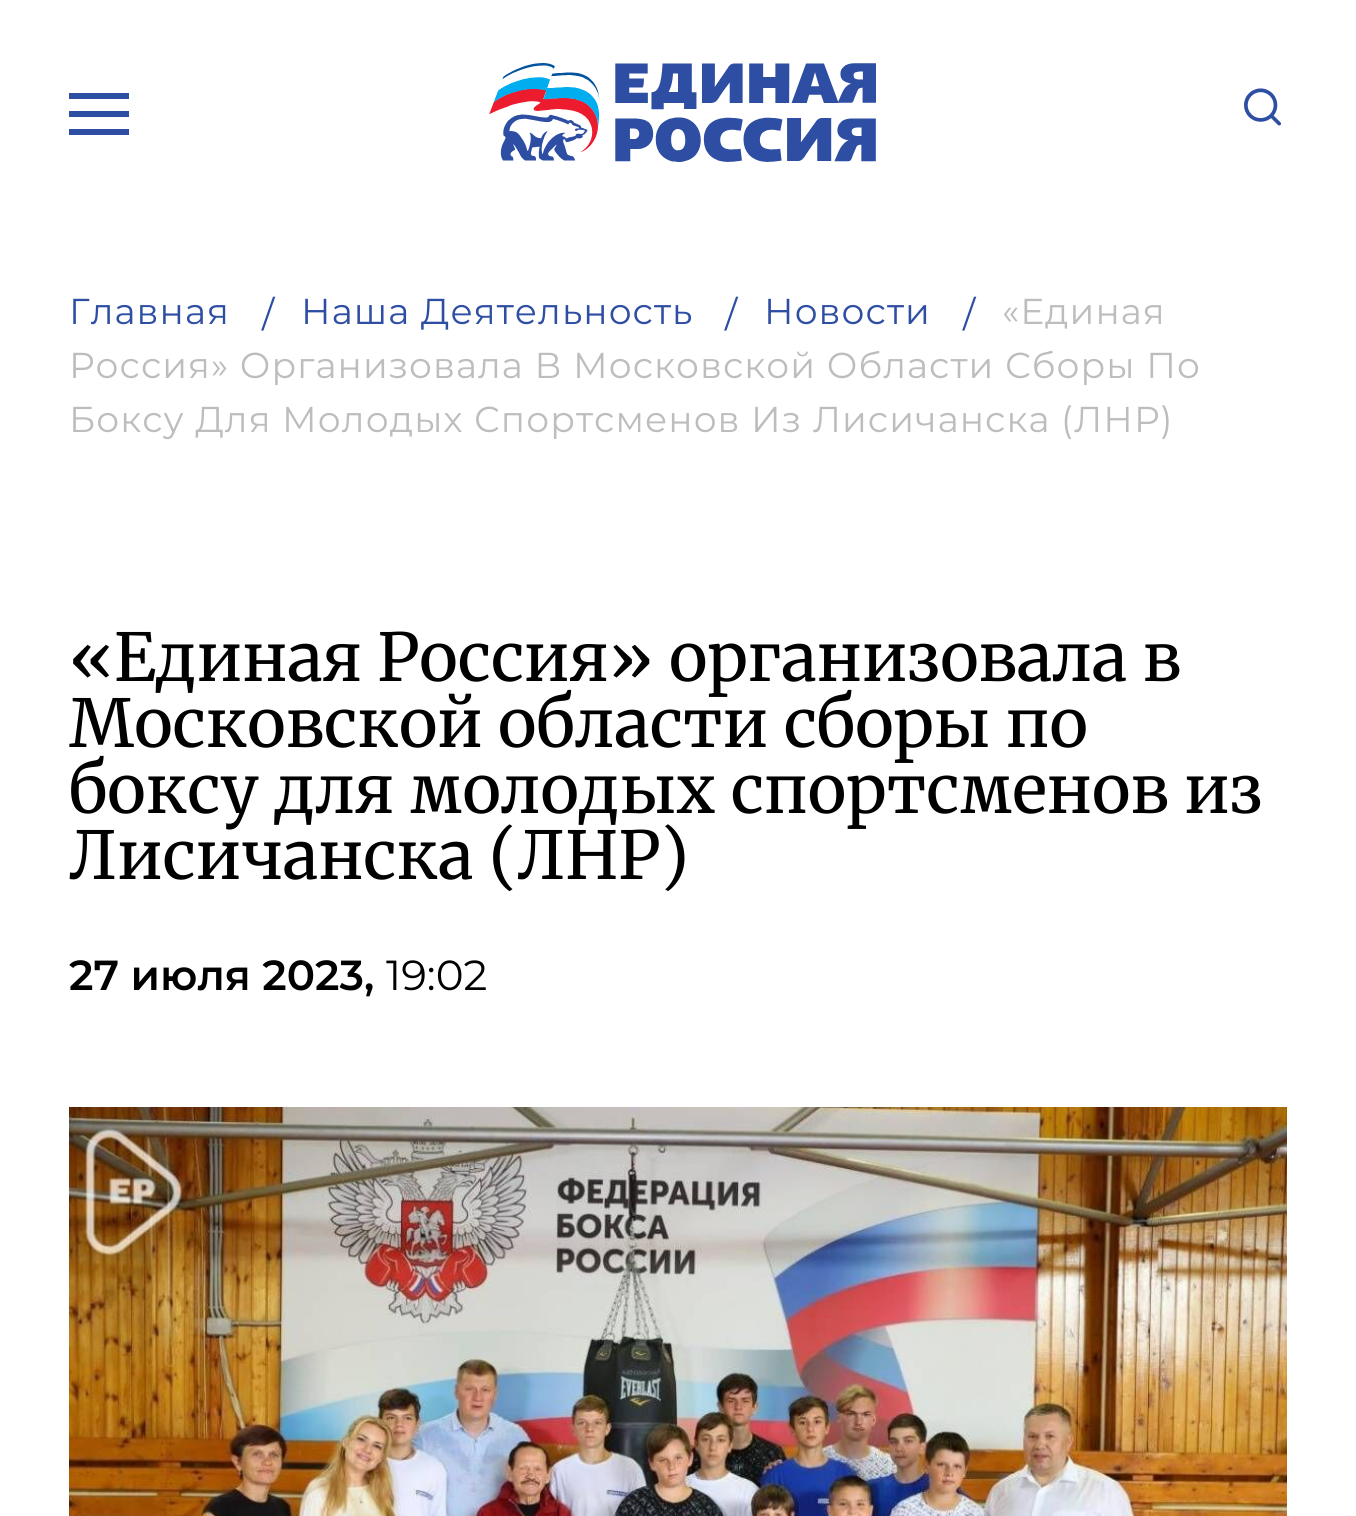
#include <cairo.h>
#include <math.h>
#include <stddef.h>

static cairo_t *c;
static void C(unsigned color){cairo_set_source_rgb(c, (color >> 16) / 255.0, (color >> 8 & 255) / 255.0, (color & 255) / 255.0);}
static void F(const char *family, double size, int italic, int bold){cairo_select_font_face(c, family, italic ? CAIRO_FONT_SLANT_ITALIC : CAIRO_FONT_SLANT_NORMAL,bold ? CAIRO_FONT_WEIGHT_BOLD : CAIRO_FONT_WEIGHT_NORMAL);cairo_set_font_size(c, size);}
static void T(double x, double y, const char *s){cairo_move_to(c, x, y);cairo_show_text(c, s);}
static void L(double x, double y, const char *s, double letter, double word){cairo_move_to(c, x, y);while (*s) {char ch[5] = {0};int n = 0;do ch[n++] = *s++; while ((*s & 0xC0) == 0x80);cairo_show_text(c, ch);cairo_rel_move_to(c, letter + word * (*ch == ' '), 0);}}
static void R(double x, double y, double w, double h){cairo_rectangle(c, x, y, w, h);cairo_fill(c);}
static void I(const char *path, double x, double y, double w, double h){cairo_surface_t *image = cairo_image_surface_create_from_png(path);cairo_save(c);cairo_set_source_surface(c, image, x, y);cairo_rectangle(c, x, y, w, h);cairo_fill(c);cairo_restore(c);cairo_surface_destroy(image);}
int main(void) {
cairo_surface_t *surface = cairo_image_surface_create(CAIRO_FORMAT_RGB24, 1356, 1516);
c = cairo_create(surface);
cairo_font_options_t *options = cairo_font_options_create();
cairo_font_options_set_hint_metrics(options, CAIRO_HINT_METRICS_OFF);
cairo_font_options_set_hint_style(options, CAIRO_HINT_STYLE_NONE);
cairo_set_font_options(c, options);
cairo_set_miter_limit(c, 4);
C(0xffffff);
cairo_paint(c);
C(0x2e4ea4);
R(69,93,60,6);
R(69,111,60,6);
R(69,129,60,6);
I("1.png",489,63,387,99);
I("2.png",1244,88,37,38);
F("Montserrat",36,0,0);
L(69,324,"Главная",1.08,0);
L(262,327,"/",1.08,0);
L(301,324,"Наша Деятельность",1.08,0);
L(725,327,"/",1.08,0);
L(764,324,"Новости",1.08,0);
L(963,327,"/",1.08,0);
C(0xbdbdbd);
L(1002,324,"«Единая",1.08,0);
L(69,378,"Россия» Организовала В Московской Области Сборы По",1.08,0);
L(69,432,"Боксу Для Молодых Спортсменов Из Лисичанска (ЛНР)",1.08,0);
F("Merriweather",66,0,0);
C(0x000000);
T(69,681,"«Единая Россия» организовала в");
T(69,747,"Московской области сборы по");
T(69,813,"боксу для молодых спортсменов из");
T(69,879,"Лисичанска (ЛНР)");
F("Montserrat SemiBold",42,0,0);
T(69,990,"27 июля 2023,");
F("Montserrat",42,0,0);
T(386,990,"19:02");
I("3.png",69,1107,1218,409);
cairo_surface_write_to_png(surface, "o.png");
cairo_font_options_destroy(options);
cairo_destroy(c);
cairo_surface_destroy(surface);
return 0;
}
